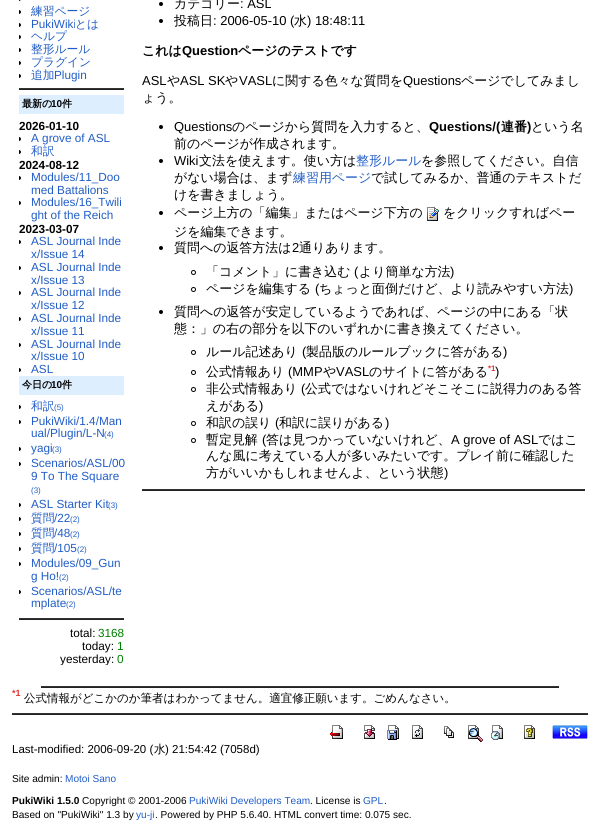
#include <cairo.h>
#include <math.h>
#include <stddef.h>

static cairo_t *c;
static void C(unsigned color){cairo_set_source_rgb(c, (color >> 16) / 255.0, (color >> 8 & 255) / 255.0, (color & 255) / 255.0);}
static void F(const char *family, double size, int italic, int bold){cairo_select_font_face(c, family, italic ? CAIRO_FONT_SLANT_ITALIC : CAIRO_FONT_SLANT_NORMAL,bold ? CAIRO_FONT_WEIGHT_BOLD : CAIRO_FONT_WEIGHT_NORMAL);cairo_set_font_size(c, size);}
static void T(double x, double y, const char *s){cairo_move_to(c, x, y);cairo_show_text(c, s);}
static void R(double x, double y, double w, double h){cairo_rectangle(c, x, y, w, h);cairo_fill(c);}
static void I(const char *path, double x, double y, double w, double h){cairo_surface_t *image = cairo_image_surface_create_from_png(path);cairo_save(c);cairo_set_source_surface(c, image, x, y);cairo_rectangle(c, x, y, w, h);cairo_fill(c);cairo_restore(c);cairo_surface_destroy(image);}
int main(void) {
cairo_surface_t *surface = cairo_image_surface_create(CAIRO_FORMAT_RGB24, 600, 831);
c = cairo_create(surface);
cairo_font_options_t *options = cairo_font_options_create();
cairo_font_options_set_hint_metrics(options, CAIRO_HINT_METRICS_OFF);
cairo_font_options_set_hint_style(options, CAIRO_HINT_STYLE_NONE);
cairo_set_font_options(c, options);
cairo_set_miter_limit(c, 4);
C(0xffffff);
cairo_paint(c);
C(0x000000);
cairo_new_path(c);
cairo_move_to(c,19,-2);
cairo_curve_to(c,20,-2,21,-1,21,0);
cairo_line_to(c,21,-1);
cairo_curve_to(c,21,0,20,1,19,1);
cairo_close_path(c);
cairo_fill(c);
cairo_new_path(c);
cairo_move_to(c,19,10);
cairo_curve_to(c,20,10,21,11,21,12);
cairo_curve_to(c,21,13,20,14,19,14);
cairo_close_path(c);
cairo_fill(c);
F("WenQuanYi Zen Hei Medium",11.75,0,0);
C(0x215dc6);
T(31,15,"練習ページ");
C(0x000000);
cairo_new_path(c);
cairo_move_to(c,19,23);
cairo_curve_to(c,20,23,21,24,21,25);
cairo_curve_to(c,21,26,20,27,19,27);
cairo_close_path(c);
cairo_fill(c);
F("Liberation Sans",11.75,0,0);
C(0x215dc6);
T(31,28,"PukiWiki");
F("WenQuanYi Zen Hei Medium",11.75,0,0);
T(75,28,"とは");
C(0x000000);
cairo_new_path(c);
cairo_move_to(c,19,35);
cairo_curve_to(c,20,35,21,36,21,37);
cairo_curve_to(c,21,38,20,39,19,39);
cairo_close_path(c);
cairo_fill(c);
C(0x215dc6);
T(31,40,"ヘルプ");
C(0x000000);
cairo_new_path(c);
cairo_move_to(c,19,48);
cairo_curve_to(c,20,48,21,49,21,50);
cairo_curve_to(c,21,51,20,52,19,52);
cairo_close_path(c);
cairo_fill(c);
C(0x215dc6);
T(31,53,"整形ルール");
C(0x000000);
cairo_new_path(c);
cairo_move_to(c,19,61);
cairo_curve_to(c,20,61,21,62,21,63);
cairo_curve_to(c,21,64,20,65,19,65);
cairo_close_path(c);
cairo_fill(c);
C(0x215dc6);
T(31,66,"プラグイン");
C(0x000000);
cairo_new_path(c);
cairo_move_to(c,19,74);
cairo_curve_to(c,20,74,21,75,21,76);
cairo_curve_to(c,21,77,20,78,19,78);
cairo_close_path(c);
cairo_fill(c);
C(0x215dc6);
T(31,79,"追加");
F("Liberation Sans",11.75,0,0);
T(54,79,"Plugin");
C(0x333333);
R(19,88,105,1);
C(0x222222);
R(19,89,105,1);
C(0xddeeff);
R(19,95,105,19);
F("WenQuanYi Zen Hei",10,0,1);
C(0x000000);
T(22,107,"最新の");
F("Liberation Sans",10,0,1);
T(51,107,"10");
F("WenQuanYi Zen Hei",10,0,1);
T(62,107,"件");
F("Liberation Sans",11.75,0,1);
T(19,130,"2026-01-10");
cairo_new_path(c);
cairo_move_to(c,19,137);
cairo_curve_to(c,20,137,21,138,21,139);
cairo_curve_to(c,21,140,20,141,19,141);
cairo_close_path(c);
cairo_fill(c);
F("Liberation Sans",11.75,0,0);
C(0x215dc6);
T(31,142,"A grove of ASL");
C(0x000000);
cairo_new_path(c);
cairo_move_to(c,19,150);
cairo_curve_to(c,20,150,21,151,21,152);
cairo_curve_to(c,21,153,20,154,19,154);
cairo_close_path(c);
cairo_fill(c);
F("WenQuanYi Zen Hei Medium",11.75,0,0);
C(0x215dc6);
T(31,155,"和訳");
F("Liberation Sans",11.75,0,1);
C(0x000000);
T(19,169,"2024-08-12");
cairo_new_path(c);
cairo_move_to(c,19,176);
cairo_curve_to(c,20,176,21,177,21,178);
cairo_curve_to(c,21,179,20,180,19,180);
cairo_close_path(c);
cairo_fill(c);
F("Liberation Sans",11.75,0,0);
C(0x215dc6);
T(31,181,"Modules/11_Doo");
T(31,194,"med Battalions");
C(0x000000);
cairo_new_path(c);
cairo_move_to(c,19,201);
cairo_curve_to(c,20,201,21,202,21,203);
cairo_curve_to(c,21,204,20,205,19,205);
cairo_close_path(c);
cairo_fill(c);
C(0x215dc6);
T(31,206,"Modules/16_Twili");
T(31,219,"ght of the Reich");
F("Liberation Sans",11.75,0,1);
C(0x000000);
T(19,233,"2023-03-07");
cairo_new_path(c);
cairo_move_to(c,19,240);
cairo_curve_to(c,20,240,21,241,21,242);
cairo_curve_to(c,21,243,20,244,19,244);
cairo_close_path(c);
cairo_fill(c);
F("Liberation Sans",11.75,0,0);
C(0x215dc6);
T(31,245,"ASL Journal Inde");
T(31,258,"x/Issue 14");
C(0x000000);
cairo_new_path(c);
cairo_move_to(c,19,266);
cairo_curve_to(c,20,266,21,267,21,268);
cairo_curve_to(c,21,269,20,270,19,270);
cairo_close_path(c);
cairo_fill(c);
C(0x215dc6);
T(31,271,"ASL Journal Inde");
T(31,284,"x/Issue 13");
C(0x000000);
cairo_new_path(c);
cairo_move_to(c,19,291);
cairo_curve_to(c,20,291,21,292,21,293);
cairo_curve_to(c,21,294,20,295,19,295);
cairo_close_path(c);
cairo_fill(c);
C(0x215dc6);
T(31,296,"ASL Journal Inde");
T(31,309,"x/Issue 12");
C(0x000000);
cairo_new_path(c);
cairo_move_to(c,19,317);
cairo_curve_to(c,20,317,21,318,21,319);
cairo_curve_to(c,21,320,20,321,19,321);
cairo_close_path(c);
cairo_fill(c);
C(0x215dc6);
T(31,322,"ASL Journal Inde");
T(31,335,"x/Issue 11");
C(0x000000);
cairo_new_path(c);
cairo_move_to(c,19,343);
cairo_curve_to(c,20,343,21,344,21,345);
cairo_curve_to(c,21,346,20,347,19,347);
cairo_close_path(c);
cairo_fill(c);
C(0x215dc6);
T(31,348,"ASL Journal Inde");
T(31,360,"x/Issue 10");
C(0x000000);
cairo_new_path(c);
cairo_move_to(c,19,368);
cairo_curve_to(c,20,368,21,369,21,370);
cairo_curve_to(c,21,371,20,372,19,372);
cairo_close_path(c);
cairo_fill(c);
C(0x215dc6);
T(31,373,"ASL");
C(0xddeeff);
R(19,376,105,19);
F("WenQuanYi Zen Hei",10,0,1);
C(0x000000);
T(22,388,"今日の");
F("Liberation Sans",10,0,1);
T(51,388,"10");
F("WenQuanYi Zen Hei",10,0,1);
T(62,388,"件");
cairo_new_path(c);
cairo_move_to(c,19,405);
cairo_curve_to(c,20,405,21,406,21,407);
cairo_curve_to(c,21,408,20,409,19,409);
cairo_close_path(c);
cairo_fill(c);
F("WenQuanYi Zen Hei Medium",11.75,0,0);
C(0x215dc6);
T(31,410,"和訳");
F("Liberation Sans",8,0,0);
T(54,410,"(5)");
C(0x000000);
cairo_new_path(c);
cairo_move_to(c,19,420);
cairo_curve_to(c,20,420,21,421,21,422);
cairo_curve_to(c,21,423,20,424,19,424);
cairo_close_path(c);
cairo_fill(c);
F("Liberation Sans",11.75,0,0);
C(0x215dc6);
T(31,425,"PukiWiki/1.4/Man");
T(31,437,"ual/Plugin/L-N");
F("Liberation Sans",8,0,0);
T(104,437,"(4)");
C(0x000000);
cairo_new_path(c);
cairo_move_to(c,19,447);
cairo_curve_to(c,20,447,21,448,21,449);
cairo_curve_to(c,21,450,20,451,19,451);
cairo_close_path(c);
cairo_fill(c);
F("Liberation Sans",11.75,0,0);
C(0x215dc6);
T(31,452,"yagi");
F("Liberation Sans",8,0,0);
T(52,452,"(3)");
C(0x000000);
cairo_new_path(c);
cairo_move_to(c,19,462);
cairo_curve_to(c,20,462,21,463,21,464);
cairo_curve_to(c,21,465,20,466,19,466);
cairo_close_path(c);
cairo_fill(c);
F("Liberation Sans",11.75,0,0);
C(0x215dc6);
T(31,467,"Scenarios/ASL/00");
T(31,480,"9 To The Square");
F("Liberation Sans",8,0,0);
T(31,493,"(3)");
C(0x000000);
cairo_new_path(c);
cairo_move_to(c,19,503);
cairo_curve_to(c,20,503,21,504,21,505);
cairo_curve_to(c,21,506,20,507,19,507);
cairo_close_path(c);
cairo_fill(c);
F("Liberation Sans",11.75,0,0);
C(0x215dc6);
T(31,508,"ASL Starter Kit");
F("Liberation Sans",8,0,0);
T(108,508,"(3)");
C(0x000000);
cairo_new_path(c);
cairo_move_to(c,19,517);
cairo_curve_to(c,20,517,21,518,21,519);
cairo_curve_to(c,21,520,20,521,19,521);
cairo_close_path(c);
cairo_fill(c);
F("WenQuanYi Zen Hei Medium",11.75,0,0);
C(0x215dc6);
T(31,522,"質問");
F("Liberation Sans",11.75,0,0);
T(54,522,"/22");
F("Liberation Sans",8,0,0);
T(70,522,"(2)");
C(0x000000);
cairo_new_path(c);
cairo_move_to(c,19,532);
cairo_curve_to(c,20,532,21,533,21,534);
cairo_curve_to(c,21,535,20,536,19,536);
cairo_close_path(c);
cairo_fill(c);
F("WenQuanYi Zen Hei Medium",11.75,0,0);
C(0x215dc6);
T(31,537,"質問");
F("Liberation Sans",11.75,0,0);
T(54,537,"/48");
F("Liberation Sans",8,0,0);
T(70,537,"(2)");
C(0x000000);
cairo_new_path(c);
cairo_move_to(c,19,547);
cairo_curve_to(c,20,547,21,548,21,549);
cairo_curve_to(c,21,550,20,551,19,551);
cairo_close_path(c);
cairo_fill(c);
F("WenQuanYi Zen Hei Medium",11.75,0,0);
C(0x215dc6);
T(31,552,"質問");
F("Liberation Sans",11.75,0,0);
T(54,552,"/105");
F("Liberation Sans",8,0,0);
T(77,552,"(2)");
C(0x000000);
cairo_new_path(c);
cairo_move_to(c,19,562);
cairo_curve_to(c,20,562,21,563,21,564);
cairo_curve_to(c,21,565,20,566,19,566);
cairo_close_path(c);
cairo_fill(c);
F("Liberation Sans",11.75,0,0);
C(0x215dc6);
T(31,567,"Modules/09_Gun");
T(31,580,"g Ho!");
F("Liberation Sans",8,0,0);
T(59,580,"(2)");
C(0x000000);
cairo_new_path(c);
cairo_move_to(c,19,590);
cairo_curve_to(c,20,590,21,591,21,592);
cairo_curve_to(c,21,593,20,594,19,594);
cairo_close_path(c);
cairo_fill(c);
F("Liberation Sans",11.75,0,0);
C(0x215dc6);
T(31,595,"Scenarios/ASL/te");
T(31,607,"mplate");
F("Liberation Sans",8,0,0);
T(66,607,"(2)");
C(0x333333);
R(19,618,105,1);
C(0x222222);
R(19,619,105,1);
F("Liberation Sans",11.75,0,0);
C(0x000000);
T(70,637,"total:");
C(0x008000);
T(98,637,"3168");
C(0x000000);
T(82,650,"today:");
C(0x008000);
T(117,650,"1");
cairo_save(c);
cairo_rectangle(c,19,0,105,665);
cairo_clip(c);
C(0x000000);
T(60,663,"yesterday:");
cairo_restore(c);
T(117,663,"0");
C(0x000000);
cairo_new_path(c);
cairo_arc(c,161,4,2,0,2 * M_PI);
cairo_fill(c);
F("WenQuanYi Zen Hei Medium",12.95,0,0);
T(174,8,"カテゴリー");
F("Liberation Sans",12.95,0,0);
T(240,8,": ASL");
cairo_new_path(c);
cairo_arc(c,161,21,2,0,2 * M_PI);
cairo_fill(c);
F("WenQuanYi Zen Hei Medium",12.95,0,0);
T(174,25,"投稿日");
F("Liberation Sans",12.95,0,0);
T(213,25,": 2006-05-10 (");
F("WenQuanYi Zen Hei Medium",12.95,0,0);
T(294,25,"水");
F("Liberation Sans",12.95,0,0);
T(307,25,") 18:48:11");
F("WenQuanYi Zen Hei",12.95,0,1);
T(142,55,"これは");
F("Liberation Sans",12.95,0,1);
T(182,55,"Question");
F("WenQuanYi Zen Hei",12.95,0,1);
T(238,55,"ページのテストです");
F("Liberation Sans",12.95,0,0);
T(142,85,"ASL");
F("WenQuanYi Zen Hei Medium",12.95,0,0);
T(167,85,"や");
F("Liberation Sans",12.95,0,0);
T(180,85,"ASL SK");
F("WenQuanYi Zen Hei Medium",12.95,0,0);
T(225,85,"や");
F("Liberation Sans",12.95,0,0);
T(239,85,"VASL");
F("WenQuanYi Zen Hei Medium",12.95,0,0);
T(272,85,"に関する色々な質問を");
F("Liberation Sans",12.95,0,0);
T(403,85,"Questions");
F("WenQuanYi Zen Hei Medium",12.95,0,0);
T(461,85,"ページでしてみまし");
T(142,102,"ょう。");
cairo_new_path(c);
cairo_arc(c,161,127,2,0,2 * M_PI);
cairo_fill(c);
F("Liberation Sans",12.95,0,0);
T(174,131,"Questions");
F("WenQuanYi Zen Hei Medium",12.95,0,0);
T(232,131,"のページから質問を入力すると、");
F("Liberation Sans",12.95,0,1);
T(429,131,"Questions/(");
F("WenQuanYi Zen Hei",12.95,0,1);
T(501,131,"連番");
F("Liberation Sans",12.95,0,1);
T(527,131,")");
F("WenQuanYi Zen Hei Medium",12.95,0,0);
T(531,131,"という名");
T(174,148,"前のページが作成されます。");
cairo_new_path(c);
cairo_arc(c,161,161,2,0,2 * M_PI);
cairo_fill(c);
F("Liberation Sans",12.95,0,0);
T(174,165,"Wiki");
F("WenQuanYi Zen Hei Medium",12.95,0,0);
T(199,165,"文法を使えます。使い方は");
C(0x215dc6);
T(356,165,"整形ルール");
C(0x000000);
T(421,165,"を参照してください。自信");
T(174,182,"がない場合は、まず");
C(0x215dc6);
T(293,182,"練習用ページ");
C(0x000000);
T(371,182,"で試してみるか、普通のテキストだ");
T(174,199,"けを書きましょう。");
cairo_new_path(c);
cairo_arc(c,161,213,2,0,2 * M_PI);
cairo_fill(c);
T(174,217,"ページ上方の「編集」またはページ下方の");
I("1.png",427,207,12,14);
T(443,217,"をクリックすればペー");
T(174,236,"ジを編集できます。");
cairo_new_path(c);
cairo_arc(c,161,248,2,0,2 * M_PI);
cairo_fill(c);
T(174,252,"質問への返答方法は");
F("Liberation Sans",12.95,0,0);
T(292,252,"2");
F("WenQuanYi Zen Hei Medium",12.95,0,0);
T(299,252,"通りあります。");
cairo_new_path(c);
cairo_arc(c,193.5,272.5,2,0,2 * M_PI);
cairo_set_line_width(c,1);
cairo_stroke(c);
T(206,276,"「コメント」に書き込む");
F("Liberation Sans",12.95,0,0);
T(354,276,"(");
F("WenQuanYi Zen Hei Medium",12.95,0,0);
T(359,276,"より簡単な方法");
F("Liberation Sans",12.95,0,0);
T(450,276,")");
cairo_new_path(c);
cairo_arc(c,193.5,289.5,2,0,2 * M_PI);
cairo_stroke(c);
F("WenQuanYi Zen Hei Medium",12.95,0,0);
T(206,293,"ページを編集する");
F("Liberation Sans",12.95,0,0);
T(315,293,"(");
F("WenQuanYi Zen Hei Medium",12.95,0,0);
T(319,293,"ちょっと面倒だけど、より読みやすい方法");
F("Liberation Sans",12.95,0,0);
T(569,293,")");
cairo_new_path(c);
cairo_arc(c,161,312,2,0,2 * M_PI);
cairo_fill(c);
F("WenQuanYi Zen Hei Medium",12.95,0,0);
T(174,316,"質問への返答が安定しているようであれば、ページの中にある「状");
T(174,333,"態：」の右の部分を以下のいずれかに書き換えてください。");
cairo_new_path(c);
cairo_arc(c,193.5,352.5,2,0,2 * M_PI);
cairo_stroke(c);
T(206,356,"ルール記述あり");
F("Liberation Sans",12.95,0,0);
T(302,356,"(");
F("WenQuanYi Zen Hei Medium",12.95,0,0);
T(306,356,"製品版のルールブックに答がある");
F("Liberation Sans",12.95,0,0);
T(503,356,")");
cairo_new_path(c);
cairo_arc(c,193.5,372.5,2,0,2 * M_PI);
cairo_stroke(c);
F("WenQuanYi Zen Hei Medium",12.95,0,0);
T(206,376,"公式情報あり");
F("Liberation Sans",12.95,0,0);
T(288,376,"(MMP");
F("WenQuanYi Zen Hei Medium",12.95,0,0);
T(323,376,"や");
F("Liberation Sans",12.95,0,0);
T(336,376,"VASL");
F("WenQuanYi Zen Hei Medium",12.95,0,0);
T(369,376,"のサイトに答がある");
F("Liberation Sans",8,0,1);
C(0xdd3333);
T(488,371,"*1");
F("Liberation Sans",12.95,0,0);
C(0x000000);
T(495,376,")");
cairo_new_path(c);
cairo_arc(c,193.5,389.5,2,0,2 * M_PI);
cairo_stroke(c);
F("WenQuanYi Zen Hei Medium",12.95,0,0);
T(206,393,"非公式情報あり");
F("Liberation Sans",12.95,0,0);
T(301,393,"(");
F("WenQuanYi Zen Hei Medium",12.95,0,0);
T(305,393,"公式ではないけれどそこそこに説得力のある答");
T(206,410,"えがある");
F("Liberation Sans",12.95,0,0);
T(259,410,")");
cairo_new_path(c);
cairo_arc(c,193.5,423.5,2,0,2 * M_PI);
cairo_stroke(c);
F("WenQuanYi Zen Hei Medium",12.95,0,0);
T(206,427,"和訳の誤り");
F("Liberation Sans",12.95,0,0);
T(275,427,"(");
F("WenQuanYi Zen Hei Medium",12.95,0,0);
T(279,427,"和訳に誤りがある");
F("Liberation Sans",12.95,0,0);
T(385,427,")");
cairo_new_path(c);
cairo_arc(c,193.5,440.5,2,0,2 * M_PI);
cairo_stroke(c);
F("WenQuanYi Zen Hei Medium",12.95,0,0);
T(206,444,"暫定見解");
F("Liberation Sans",12.95,0,0);
T(262,444,"(");
F("WenQuanYi Zen Hei Medium",12.95,0,0);
T(266,444,"答は見つかっていないけれど、");
F("Liberation Sans",12.95,0,0);
T(451,444,"A grove of ASL");
F("WenQuanYi Zen Hei Medium",12.95,0,0);
T(538,444,"ではこ");
T(206,460,"んな風に考えている人が多いみたいです。プレイ前に確認した");
T(206,477,"方がいいかもしれませんよ、という状態");
F("Liberation Sans",12.95,0,0);
T(444,477,")");
C(0x333333);
R(142,489,443,1);
C(0x222222);
R(142,490,443,1);
C(0x333333);
R(41,686,518,1);
C(0x222222);
R(41,687,518,1);
F("Liberation Sans",9,0,1);
C(0xdd3333);
T(12,696,"*1");
F("WenQuanYi Zen Hei Medium",11.5,0,0);
C(0x000000);
T(24,702,"公式情報がどこかのか筆者はわかってません。適宜修正願います。ごめんなさい。");
C(0x333333);
R(12,713,576,1);
C(0x222222);
R(12,714,576,1);
I("2.png",330,725,13,14);
I("3.png",364,725,11,14);
I("4.png",387,725,12,15);
I("5.png",412,725,11,14);
I("6.png",444,726,10,12);
I("7.png",468,725,15,17);
I("8.png",491,725,12,15);
I("9.png",524,725,11,14);
I("10.png",552,725,36,14);
F("Liberation Sans",11.5,0,0);
C(0x000000);
T(12,753,"Last-modified: 2006-09-20 (");
F("WenQuanYi Zen Hei Medium",11.5,0,0);
T(154,753,"水");
F("Liberation Sans",11.5,0,0);
T(165,753,") 21:54:42 (7058d)");
F("Liberation Sans",10.1,0,0);
T(12,782,"Site admin:");
C(0x215dc6);
T(65,782,"Motoi Sano");
F("Liberation Sans",10.1,0,1);
C(0x000000);
T(12,804,"PukiWiki 1.5.0");
F("Liberation Sans",10.1,0,0);
T(82,804,"Copyright © 2001-2006");
C(0x215dc6);
T(189,804,"PukiWiki Developers Team");
C(0x000000);
T(310,804,". License is");
C(0x215dc6);
T(363,804,"GPL");
C(0x000000);
T(384,804,".");
T(12,818,"Based on \"PukiWiki\" 1.3 by");
C(0x215dc6);
T(136,818,"yu-ji");
C(0x000000);
T(155,818,". Powered by PHP 5.6.40. HTML convert time: 0.075 sec.");
cairo_surface_write_to_png(surface, "o.png");
cairo_font_options_destroy(options);
cairo_destroy(c);
cairo_surface_destroy(surface);
return 0;
}
